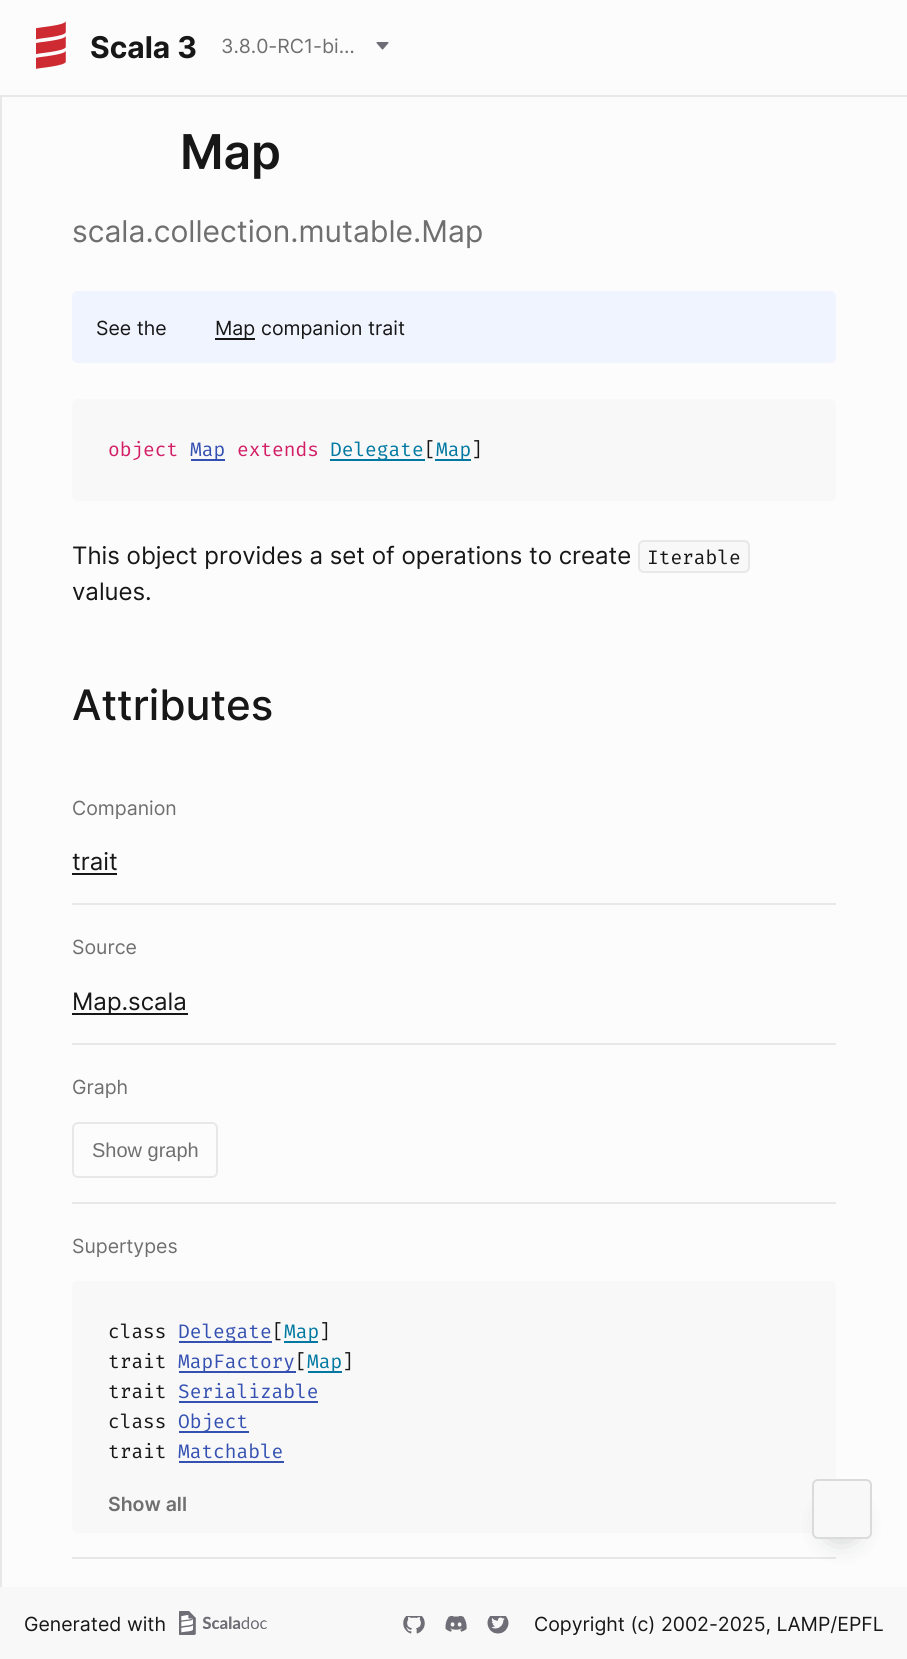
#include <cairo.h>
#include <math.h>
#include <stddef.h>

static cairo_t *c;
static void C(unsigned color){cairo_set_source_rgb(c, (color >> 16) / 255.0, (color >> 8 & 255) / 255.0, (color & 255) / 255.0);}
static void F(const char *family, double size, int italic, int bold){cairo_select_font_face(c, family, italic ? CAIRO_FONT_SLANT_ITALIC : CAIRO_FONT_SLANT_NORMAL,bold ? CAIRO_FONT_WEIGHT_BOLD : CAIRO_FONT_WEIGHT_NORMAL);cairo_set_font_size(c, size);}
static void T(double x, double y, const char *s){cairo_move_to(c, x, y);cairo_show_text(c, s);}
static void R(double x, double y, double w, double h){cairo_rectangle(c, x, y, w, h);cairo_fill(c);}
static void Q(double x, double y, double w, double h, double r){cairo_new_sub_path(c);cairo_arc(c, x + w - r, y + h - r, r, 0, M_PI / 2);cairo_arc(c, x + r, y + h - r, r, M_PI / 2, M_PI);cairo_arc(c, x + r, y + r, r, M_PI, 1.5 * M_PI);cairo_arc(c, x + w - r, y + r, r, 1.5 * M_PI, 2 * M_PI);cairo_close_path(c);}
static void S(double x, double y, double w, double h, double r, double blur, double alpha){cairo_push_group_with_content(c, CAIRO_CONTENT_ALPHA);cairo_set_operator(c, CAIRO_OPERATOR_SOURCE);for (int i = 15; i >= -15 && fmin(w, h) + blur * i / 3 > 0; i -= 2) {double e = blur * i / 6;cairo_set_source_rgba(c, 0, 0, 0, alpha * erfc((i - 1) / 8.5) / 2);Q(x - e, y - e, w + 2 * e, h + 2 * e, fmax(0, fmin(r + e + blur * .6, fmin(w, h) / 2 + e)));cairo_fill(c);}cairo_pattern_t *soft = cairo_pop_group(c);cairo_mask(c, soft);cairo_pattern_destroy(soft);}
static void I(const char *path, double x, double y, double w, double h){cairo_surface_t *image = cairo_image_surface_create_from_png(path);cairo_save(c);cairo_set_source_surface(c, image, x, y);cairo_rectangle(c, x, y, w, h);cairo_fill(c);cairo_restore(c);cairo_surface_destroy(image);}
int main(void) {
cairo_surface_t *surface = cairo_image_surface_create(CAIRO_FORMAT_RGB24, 907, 1659);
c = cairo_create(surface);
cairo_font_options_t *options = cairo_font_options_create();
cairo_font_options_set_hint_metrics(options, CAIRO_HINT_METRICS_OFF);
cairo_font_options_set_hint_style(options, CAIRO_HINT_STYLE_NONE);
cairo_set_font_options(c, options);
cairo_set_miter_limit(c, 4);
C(0xfcfcfc);
cairo_paint(c);
C(0xe8e8e8);
R(0,96,2,1493);
R(0,95,907,2);
I("1.png",36,21,30,48);
F("Inter",30,0,1);
C(0x171717);
T(90,58,"Scala 3");
F("Inter",19.5,0,0);
C(0x6f6f6f);
T(221,53,"3.8.0-RC1-bi…");
I("2.png",376,42,13,8);
F("Inter SemiBold",48,0,0);
C(0x171717);
T(180,169,"Map");
F("Inter",30,0,0);
C(0x6f6f6f);
T(72,242,"scala.collection.mutable.Map");
C(0xf0f4ff);
Q(72,291,764,72,6);
cairo_fill(c);
F("Inter",19.5,0,0);
C(0x171717);
T(96,335,"See the");
R(215,338,40,2);
T(215,335,"Map");
T(261,335,"companion trait");
C(0xf8f8f8);
Q(72,399,764,102,6);
cairo_fill(c);
F("Fira Code",19.5,0,0);
C(0xd31e66);
T(108,456,"object");
C(0x3451b2);
R(191,459,34,2);
T(190,456,"Map");
C(0xd31e66);
T(237,456,"extends");
C(0x0078a1);
R(330,459,95,2);
T(330,456,"Delegate");
C(0x171717);
T(424,456,"[");
C(0x0078a1);
R(435,459,36,2);
T(436,456,"Map");
C(0x171717);
T(471,456,"]");
F("Inter",24,0,0);
T(72,564,"This object provides a set of operations to create");
C(0xf8f8f8);
Q(639,541,110,31,5);
cairo_fill_preserve(c);
C(0xe8e8e8);
cairo_stroke(c);
F("Fira Code",19.5,0,0);
C(0x171717);
T(647,564,"Iterable");
F("Inter",24,0,0);
T(72,600,"values.");
F("Inter Medium",42,0,0);
T(72,720,"Attributes");
F("Inter",19.5,0,0);
C(0x6f6f6f);
T(72,815,"Companion");
F("Inter",24,0,0);
C(0x171717);
T(72,870,"trait");
R(72,873,45,2);
C(0xe8e8e8);
R(72,903,764,2);
F("Inter",19.5,0,0);
C(0x6f6f6f);
T(72,954,"Source");
C(0x171717);
R(72,1013,116,2);
F("Inter",24,0,0);
T(72,1010,"Map.scala");
C(0xe8e8e8);
R(72,1043,764,2);
F("Inter",19.5,0,0);
C(0x6f6f6f);
T(72,1094,"Graph");
Q(73,1123,144,54,5);
C(0xe8e8e8);
cairo_stroke(c);
F("Liberation Sans",20,0,0);
C(0x6f6f6f);
T(92,1157,"Show graph");
C(0xe8e8e8);
R(72,1202,764,2);
F("Inter",19.5,0,0);
C(0x6f6f6f);
T(72,1253,"Supertypes");
C(0xf8f8f8);
Q(72,1281,764,252,6);
cairo_fill(c);
F("Fira Code",19.5,0,0);
C(0x171717);
T(108,1338,"class");
C(0x3451b2);
R(179,1341,93,2);
T(178,1338,"Delegate");
C(0x171717);
T(272,1338,"[");
C(0x0078a1);
R(284,1341,34,2);
T(284,1338,"Map");
C(0x171717);
T(319,1338,"]");
T(108,1368,"trait");
C(0x3451b2);
R(179,1371,117,2);
T(178,1368,"MapFactory");
C(0x171717);
T(295,1368,"[");
C(0x0078a1);
R(308,1371,34,2);
T(307,1368,"Map");
C(0x171717);
T(342,1368,"]");
T(108,1398,"trait");
C(0x3451b2);
T(178,1398,"Serializable");
R(179,1401,139,2);
C(0x171717);
T(108,1428,"class");
C(0x3451b2);
R(179,1431,70,2);
T(178,1428,"Object");
C(0x171717);
T(108,1458,"trait");
C(0x3451b2);
T(178,1458,"Matchable");
R(179,1461,105,2);
F("Inter SemiBold",19.5,0,0);
C(0x6f6f6f);
T(108,1511,"Show all");
C(0xe8e8e8);
R(72,1557,764,2);
C(0x0e1216);
S(834,1517,15,15,0,15,.35);
C(0xf8f8f8);
Q(813,1480,58,58,5);
cairo_fill_preserve(c);
C(0xdbdbdb);
cairo_stroke(c);
C(0xf8f8f8);
R(0,1587,907,72);
F("Inter",19.5,0,0);
C(0x171717);
T(24,1631,"Generated with");
I("3.png",179,1611,88,24);
I("4.png",403,1616,22,18);
I("5.png",445,1616,22,16);
I("6.png",487,1616,22,18);
T(534,1631,"Copyright (c) 2002-2025, LAMP/EPFL");
cairo_surface_write_to_png(surface, "o.png");
cairo_font_options_destroy(options);
cairo_destroy(c);
cairo_surface_destroy(surface);
return 0;
}
